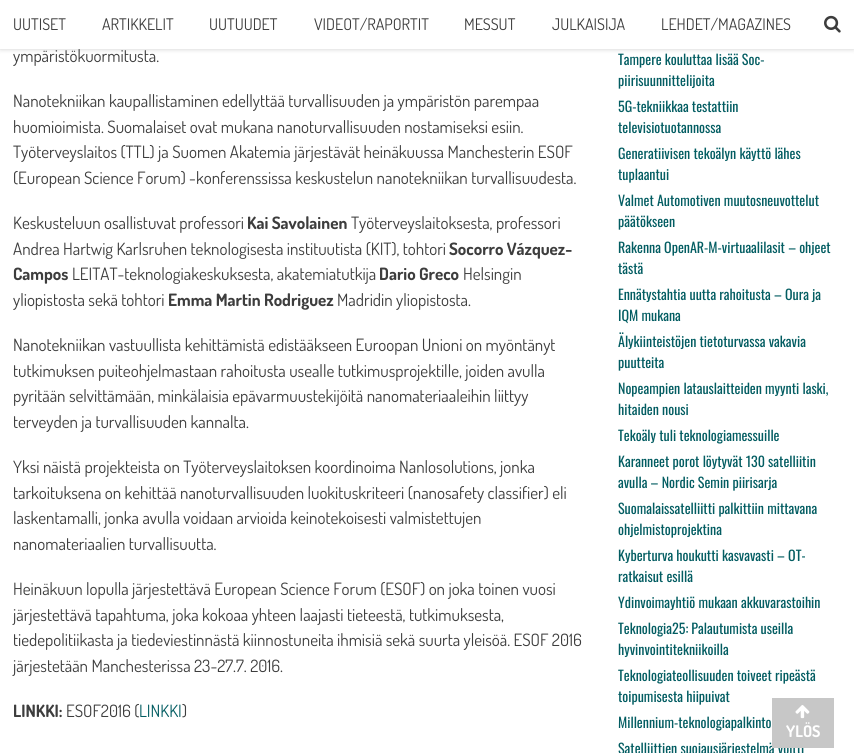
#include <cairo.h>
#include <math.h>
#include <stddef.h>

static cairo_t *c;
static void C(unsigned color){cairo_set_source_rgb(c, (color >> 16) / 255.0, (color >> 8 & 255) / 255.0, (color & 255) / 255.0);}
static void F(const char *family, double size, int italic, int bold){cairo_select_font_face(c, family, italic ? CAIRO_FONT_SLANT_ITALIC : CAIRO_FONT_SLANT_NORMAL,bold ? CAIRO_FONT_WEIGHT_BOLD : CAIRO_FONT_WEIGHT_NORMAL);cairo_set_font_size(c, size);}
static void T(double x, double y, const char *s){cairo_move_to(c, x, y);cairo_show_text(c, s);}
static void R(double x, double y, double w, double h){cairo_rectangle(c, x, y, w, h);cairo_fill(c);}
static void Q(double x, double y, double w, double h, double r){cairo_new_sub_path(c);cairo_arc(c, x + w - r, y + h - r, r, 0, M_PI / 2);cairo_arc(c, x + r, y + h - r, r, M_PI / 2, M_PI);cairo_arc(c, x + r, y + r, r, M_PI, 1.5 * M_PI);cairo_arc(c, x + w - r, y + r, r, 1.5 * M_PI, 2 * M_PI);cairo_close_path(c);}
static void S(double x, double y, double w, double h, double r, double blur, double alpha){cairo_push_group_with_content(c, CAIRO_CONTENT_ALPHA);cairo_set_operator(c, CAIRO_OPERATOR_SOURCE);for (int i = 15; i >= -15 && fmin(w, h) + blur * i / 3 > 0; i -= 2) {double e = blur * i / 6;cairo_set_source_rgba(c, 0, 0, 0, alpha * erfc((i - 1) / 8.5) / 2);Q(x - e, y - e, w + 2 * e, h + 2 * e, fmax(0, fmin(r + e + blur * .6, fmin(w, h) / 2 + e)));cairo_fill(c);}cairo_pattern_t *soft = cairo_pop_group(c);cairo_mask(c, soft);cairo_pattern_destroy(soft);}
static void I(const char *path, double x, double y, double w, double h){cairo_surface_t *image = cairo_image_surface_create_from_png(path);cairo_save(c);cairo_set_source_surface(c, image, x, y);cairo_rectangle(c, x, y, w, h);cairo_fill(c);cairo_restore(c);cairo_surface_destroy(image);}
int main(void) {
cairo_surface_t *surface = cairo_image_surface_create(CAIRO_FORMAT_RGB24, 854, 753);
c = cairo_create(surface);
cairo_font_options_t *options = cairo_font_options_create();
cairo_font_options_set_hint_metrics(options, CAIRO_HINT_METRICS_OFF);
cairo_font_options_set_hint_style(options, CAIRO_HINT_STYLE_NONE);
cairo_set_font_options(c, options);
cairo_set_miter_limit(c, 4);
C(0xffffff);
cairo_paint(c);
C(0x000000);
S(0,0,854,49,0,2.5,.2);
C(0xffffff);
R(0,0,854,49);
F("Dosis",16,0,0);
C(0x3d3d3d);
T(13,30,"UUTISET");
T(102,30,"ARTIKKELIT");
T(209,30,"UUTUUDET");
T(314,30,"VIDEOT/RAPORTIT");
T(464,30,"MESSUT");
T(552,30,"JULKAISIJA");
T(661,30,"LEHDET/MAGAZINES");
I("1.png",824,15,17,18);
F("Dosis",17,0,0);
T(13,62,"ympäristökuormitusta.");
T(13,107,"Nanotekniikan kaupallistaminen edellyttää turvallisuuden ja ympäristön parempaa");
T(13,133,"huomioimista. Suomalaiset ovat mukana nanoturvallisuuden nostamiseksi esiin.");
T(13,158,"Työterveyslaitos (TTL) ja Suomen Akatemia järjestävät heinäkuussa Manchesterin ESOF");
T(13,184,"(European Science Forum) -konferenssissa keskustelun nanotekniikan turvallisuudesta.");
T(13,229,"Keskusteluun osallistuvat professori");
F("Dosis",17,0,1);
T(247,229,"Kai Savolainen");
F("Dosis",17,0,0);
T(351,229,"Työterveyslaitoksesta, professori");
T(13,255,"Andrea Hartwig Karlsruhen teknologisesta instituutista (KIT), tohtori");
F("Dosis",17,0,1);
T(449,255,"Socorro Vázquez-");
T(13,280,"Campos");
F("Dosis",17,0,0);
T(72,280,"LEITAT-teknologiakeskuksesta, akatemiatutkija");
F("Dosis",17,0,1);
T(379,280,"Dario Greco");
F("Dosis",17,0,0);
T(463,280,"Helsingin");
T(13,306,"yliopistosta sekä tohtori");
F("Dosis",17,0,1);
T(168,306,"Emma Martin Rodriguez");
F("Dosis",17,0,0);
T(337,306,"Madridin yliopistosta.");
T(13,351,"Nanotekniikan vastuullista kehittämistä edistääkseen Euroopan Unioni on myöntänyt");
T(13,377,"tutkimuksen puiteohjelmastaan rahoitusta usealle tutkimusprojektille, joiden avulla");
T(13,402,"pyritään selvittämään, minkälaisia epävarmuustekijöitä nanomateriaaleihin liittyy");
T(13,428,"terveyden ja turvallisuuden kannalta.");
T(13,473,"Yksi näistä projekteista on Työterveyslaitoksen koordinoima Nanlosolutions, jonka");
T(13,499,"tarkoituksena on kehittää nanoturvallisuuden luokituskriteeri (nanosafety classifier) eli");
T(13,524,"laskentamalli, jonka avulla voidaan arvioida keinotekoisesti valmistettujen");
T(13,550,"nanomateriaalien turvallisuutta.");
T(13,595,"Heinäkuun lopulla järjestettävä European Science Forum (ESOF) on joka toinen vuosi");
T(13,621,"järjestettävä tapahtuma, joka kokoaa yhteen laajasti tieteestä, tutkimuksesta,");
T(13,646,"tiedepolitiikasta ja tiedeviestinnästä kiinnostuneita ihmisiä sekä suurta yleisöä. ESOF 2016");
T(13,672,"järjestetään Manchesterissa 23-27.7. 2016.");
F("Dosis",17,0,1);
T(13,717,"LINKKI:");
F("Dosis",17,0,0);
T(66,717,"ESOF2016 (");
C(0x035d62);
T(139,717,"LINKKI");
C(0x3d3d3d);
T(182,717,")");
F("Oswald",14,0,0);
C(0x035d62);
T(618,65,"Tampere kouluttaa lisää Soc-");
T(618,86,"piirisuunnittelijoita");
T(618,112,"5G-tekniikkaa testattiin");
T(618,133,"televisiotuotannossa");
T(618,159,"Generatiivisen tekoälyn käyttö lähes");
T(618,180,"tuplaantui");
T(618,206,"Valmet Automotiven muutosneuvottelut");
T(618,227,"päätökseen");
T(618,253,"Rakenna OpenAR-M-virtuaalilasit – ohjeet");
T(618,274,"tästä");
T(618,300,"Ennätystahtia uutta rahoitusta – Oura ja");
T(618,321,"IQM mukana");
T(618,347,"Älykiinteistöjen tietoturvassa vakavia");
T(618,368,"puutteita");
T(618,394,"Nopeampien latauslaitteiden myynti laski,");
T(618,415,"hitaiden nousi");
T(618,441,"Tekoäly tuli teknologiamessuille");
T(618,467,"Karanneet porot löytyvät 130 satelliitin");
T(618,488,"avulla – Nordic Semin piirisarja");
T(618,514,"Suomalaissatelliitti palkittiin mittavana");
T(618,535,"ohjelmistoprojektina");
T(618,561,"Kyberturva houkutti kasvavasti – OT-");
T(618,582,"ratkaisut esillä");
T(618,608,"Ydinvoimayhtiö mukaan akkuvarastoihin");
T(618,634,"Teknologia25: Palautumista useilla");
T(618,655,"hyvinvointitekniikoilla");
T(618,681,"Teknologiateollisuuden toiveet ripeästä");
T(618,702,"toipumisesta hiipuivat");
T(618,728,"Millennium-teknologiapalkinto");
T(618,754,"Satelliittien suojausjärjestelmä voitti");
C(0xc7c7c7);
R(772,698,62,50);
I("2.png",795,705,15,14);
F("Dosis",16,0,1);
C(0xffffff);
T(786,737,"YLÖS");
cairo_surface_write_to_png(surface, "o.png");
cairo_font_options_destroy(options);
cairo_destroy(c);
cairo_surface_destroy(surface);
return 0;
}
